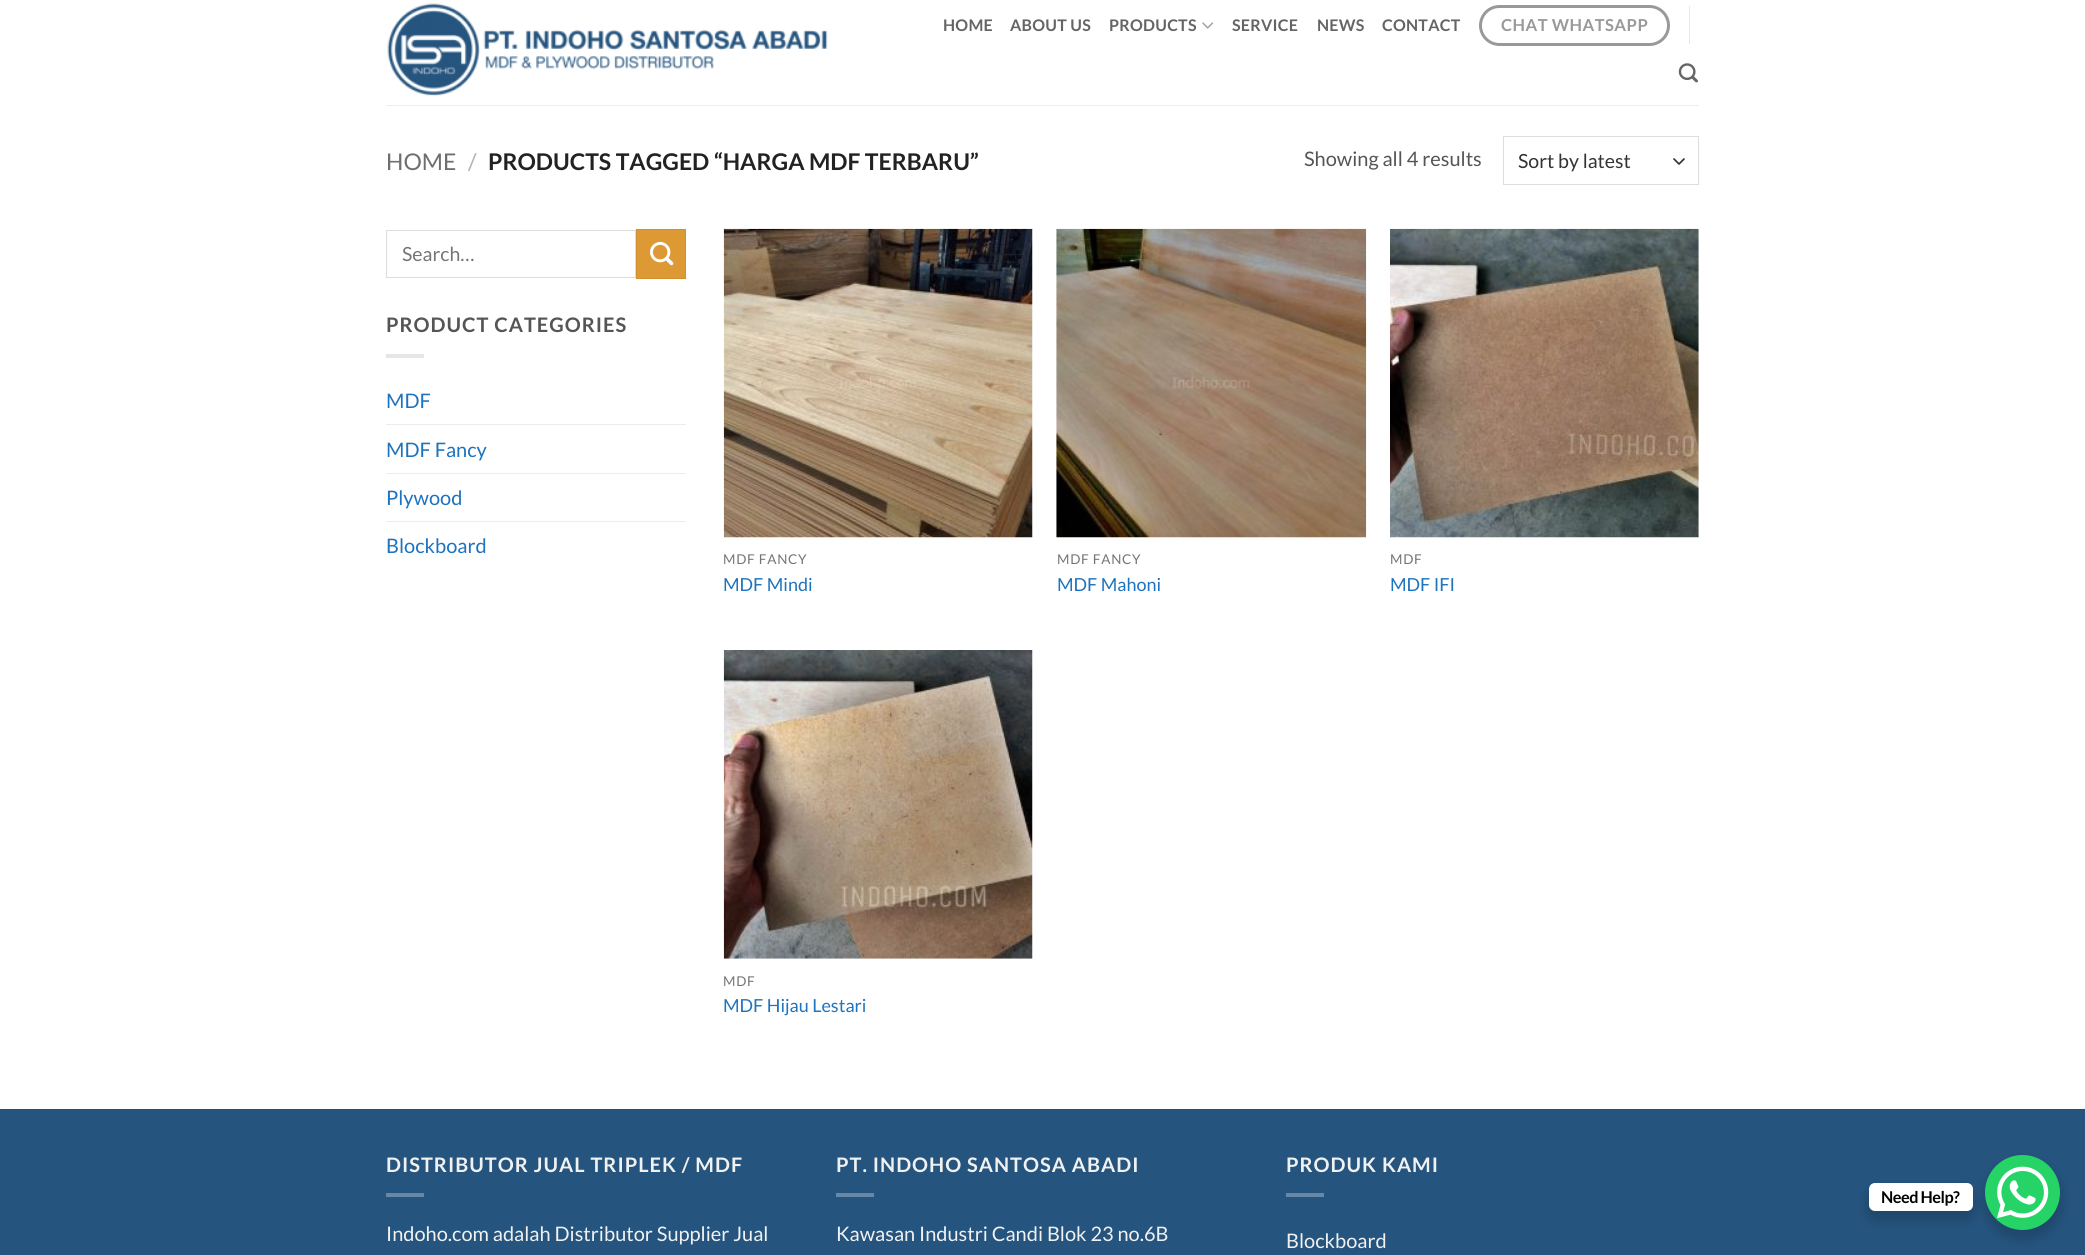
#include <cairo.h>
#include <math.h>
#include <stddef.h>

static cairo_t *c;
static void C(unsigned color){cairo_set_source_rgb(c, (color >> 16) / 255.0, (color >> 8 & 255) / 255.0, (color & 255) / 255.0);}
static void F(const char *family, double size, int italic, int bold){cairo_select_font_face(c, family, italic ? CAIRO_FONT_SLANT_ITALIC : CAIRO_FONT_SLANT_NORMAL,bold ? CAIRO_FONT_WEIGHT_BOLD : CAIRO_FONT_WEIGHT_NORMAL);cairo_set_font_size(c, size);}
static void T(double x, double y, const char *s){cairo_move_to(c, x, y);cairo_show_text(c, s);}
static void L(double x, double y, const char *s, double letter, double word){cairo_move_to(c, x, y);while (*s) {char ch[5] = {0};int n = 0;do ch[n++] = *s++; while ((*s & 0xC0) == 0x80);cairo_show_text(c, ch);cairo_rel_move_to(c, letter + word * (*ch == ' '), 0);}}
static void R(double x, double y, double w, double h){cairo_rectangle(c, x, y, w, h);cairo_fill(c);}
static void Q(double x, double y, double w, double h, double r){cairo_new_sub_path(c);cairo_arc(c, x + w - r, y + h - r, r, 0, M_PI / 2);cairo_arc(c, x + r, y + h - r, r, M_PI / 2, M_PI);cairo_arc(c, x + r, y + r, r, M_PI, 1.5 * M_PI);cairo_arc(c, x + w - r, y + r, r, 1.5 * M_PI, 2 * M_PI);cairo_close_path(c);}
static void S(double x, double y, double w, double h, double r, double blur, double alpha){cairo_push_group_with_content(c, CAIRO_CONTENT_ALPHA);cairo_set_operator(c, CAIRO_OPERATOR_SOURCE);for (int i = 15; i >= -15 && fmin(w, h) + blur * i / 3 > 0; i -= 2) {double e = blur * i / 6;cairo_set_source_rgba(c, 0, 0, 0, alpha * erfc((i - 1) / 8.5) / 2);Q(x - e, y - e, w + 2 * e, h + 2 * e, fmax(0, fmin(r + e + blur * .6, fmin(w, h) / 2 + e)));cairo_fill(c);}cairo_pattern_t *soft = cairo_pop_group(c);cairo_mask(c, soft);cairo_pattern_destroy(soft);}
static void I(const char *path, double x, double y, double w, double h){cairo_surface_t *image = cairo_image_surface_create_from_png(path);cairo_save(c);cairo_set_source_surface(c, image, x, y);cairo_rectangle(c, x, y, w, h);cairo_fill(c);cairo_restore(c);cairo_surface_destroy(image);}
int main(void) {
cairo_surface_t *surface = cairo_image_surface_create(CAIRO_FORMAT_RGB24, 2085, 1255);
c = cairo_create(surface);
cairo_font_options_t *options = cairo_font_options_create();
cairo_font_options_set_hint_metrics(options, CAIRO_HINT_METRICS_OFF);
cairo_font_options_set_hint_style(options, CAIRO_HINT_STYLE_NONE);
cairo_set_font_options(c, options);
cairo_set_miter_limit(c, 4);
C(0xffffff);
cairo_paint(c);
I("1.png",387,3,441,93);
F("Lato",16,0,1);
C(0x656565);
L(943,31,"HOME",.25,0);
L(1010,31,"ABOUT US",.25,0);
L(1109,31,"PRODUCTS",.25,0);
I("2.png",1202,22,12,7);
L(1232,31,"SERVICE",.25,0);
L(1317,31,"NEWS",.25,0);
L(1382,31,"CONTACT",.25,0);
Q(1480.5,6.5,188,38,19);
C(0x999999);
cairo_set_line_width(c,3);
cairo_stroke(c);
F("Lato",16.5,0,1);
L(1501,31,"CHAT WHATSAPP",.5,0);
C(0xe6e6e6);
R(1689,6,1,38);
I("3.png",1678,63,20,20);
C(0xeeeeee);
R(386,105,1313,1);
F("Lato",23,0,0);
C(0x6e6e6e);
T(386,170,"HOME");
C(0xb2b2b2);
T(468,170,"/");
F("Lato",23,0,1);
C(0x222222);
T(488,170,"PRODUCTS TAGGED “HARGA MDF TERBARU”");
F("Lato",20,0,0);
C(0x555555);
T(1304,166,"Showing all 4 results");
cairo_new_path(c);
cairo_move_to(c,1674,159);
cairo_line_to(c,1679,164);
cairo_line_to(c,1684,159);
C(0x333333);
cairo_set_line_width(c,1.7);
cairo_set_line_cap(c,CAIRO_LINE_CAP_ROUND);
cairo_set_line_join(c,CAIRO_LINE_JOIN_ROUND);
cairo_stroke(c);
cairo_rectangle(c,1503.5,136.5,195,48);
C(0xdddddd);
cairo_set_line_width(c,1);
cairo_set_line_cap(c,CAIRO_LINE_CAP_BUTT);
cairo_set_line_join(c,CAIRO_LINE_JOIN_MITER);
cairo_stroke(c);
F("Lato",19.5,0,0);
C(0x333333);
T(1518,168,"Sort by latest");
cairo_rectangle(c,386.5,230.5,249,47);
C(0xdddddd);
cairo_stroke(c);
C(0x757575);
T(402,261,"Search…");
C(0xdd9933);
cairo_rectangle(c,636.5,229.5,49,49);
cairo_fill_preserve(c);
C(0xd29130);
cairo_stroke(c);
I("4.png",650,241,24,25);
F("Lato",20,0,1);
C(0x555555);
L(386,332,"PRODUCT CATEGORIES",1,0);
C(0xe6e6e6);
R(386,354,38,4);
F("Lato",20,0,0);
C(0x1e73be);
T(386,408,"MDF");
C(0xececec);
R(386,424,300,1);
C(0x1e73be);
T(386,457,"MDF Fancy");
C(0xececec);
R(386,473,300,1);
C(0x1e73be);
T(386,505,"Plywood");
C(0xececec);
R(386,521,300,1);
C(0x1e73be);
T(386,553,"Blockboard");
I("5.png",723,228,310,310);
F("Lato",13.5,0,0);
C(0x757575);
L(723,564,"MDF FANCY",.75,0);
F("Lato",18,0,0);
C(0x1e73be);
T(723,591,"MDF Mindi");
I("6.png",1056,228,311,310);
F("Lato",13.5,0,0);
C(0x757575);
L(1057,564,"MDF FANCY",.75,0);
F("Lato",18,0,0);
C(0x1e73be);
T(1057,591,"MDF Mahoni");
I("7.png",1390,228,309,310);
F("Lato",13.5,0,0);
C(0x757575);
L(1390,564,"MDF",.75,0);
F("Lato",18,0,0);
C(0x1e73be);
T(1390,591,"MDF IFI");
I("8.png",723,650,310,309);
F("Lato",13.5,0,0);
C(0x757575);
L(723,986,"MDF",.75,0);
F("Lato",18,0,0);
C(0x1e73be);
T(723,1012,"MDF Hijau Lestari");
C(0x25547e);
R(0,1110,2085,145);
C(0x235078);
R(0,1109,2085,1);
F("Lato",20,0,1);
C(0xf1f1f1);
L(386,1172,"DISTRIBUTOR JUAL TRIPLEK / MDF",1,0);
C(0x6687a5);
R(386,1193,38,4);
F("Lato",20,0,0);
C(0xf1f1f1);
T(386,1241,"Indoho.com adalah Distributor Supplier Jual");
F("Lato",20,0,1);
L(836,1172,"PT. INDOHO SANTOSA ABADI",1,0);
C(0x6687a5);
R(836,1193,38,4);
F("Lato",20,0,0);
C(0xf1f1f1);
T(836,1241,"Kawasan Industri Candi Blok 23 no.6B");
F("Lato",20,0,1);
L(1286,1172,"PRODUK KAMI",1,0);
C(0x6687a5);
R(1286,1193,38,4);
F("Lato",20,0,0);
C(0xf1f1f1);
T(1286,1248,"Blockboard");
C(0x000000);
S(1983,1160,80,80,40,5,.15);
C(0x25d366);
cairo_arc(c,2022.5,1192.5,37.5,0,2 * M_PI);
cairo_fill(c);
C(0x000000);
S(1866,1188,109,33,9,5,.15);
C(0xffffff);
Q(1869,1183,104,28,6);
cairo_fill(c);
F("Lato",16.25,0,1);
C(0x000000);
L(1881,1203,"Need Help?",-.5,0);
I("9.png",1997,1166,52,53);
cairo_surface_write_to_png(surface, "o.png");
cairo_font_options_destroy(options);
cairo_destroy(c);
cairo_surface_destroy(surface);
return 0;
}
